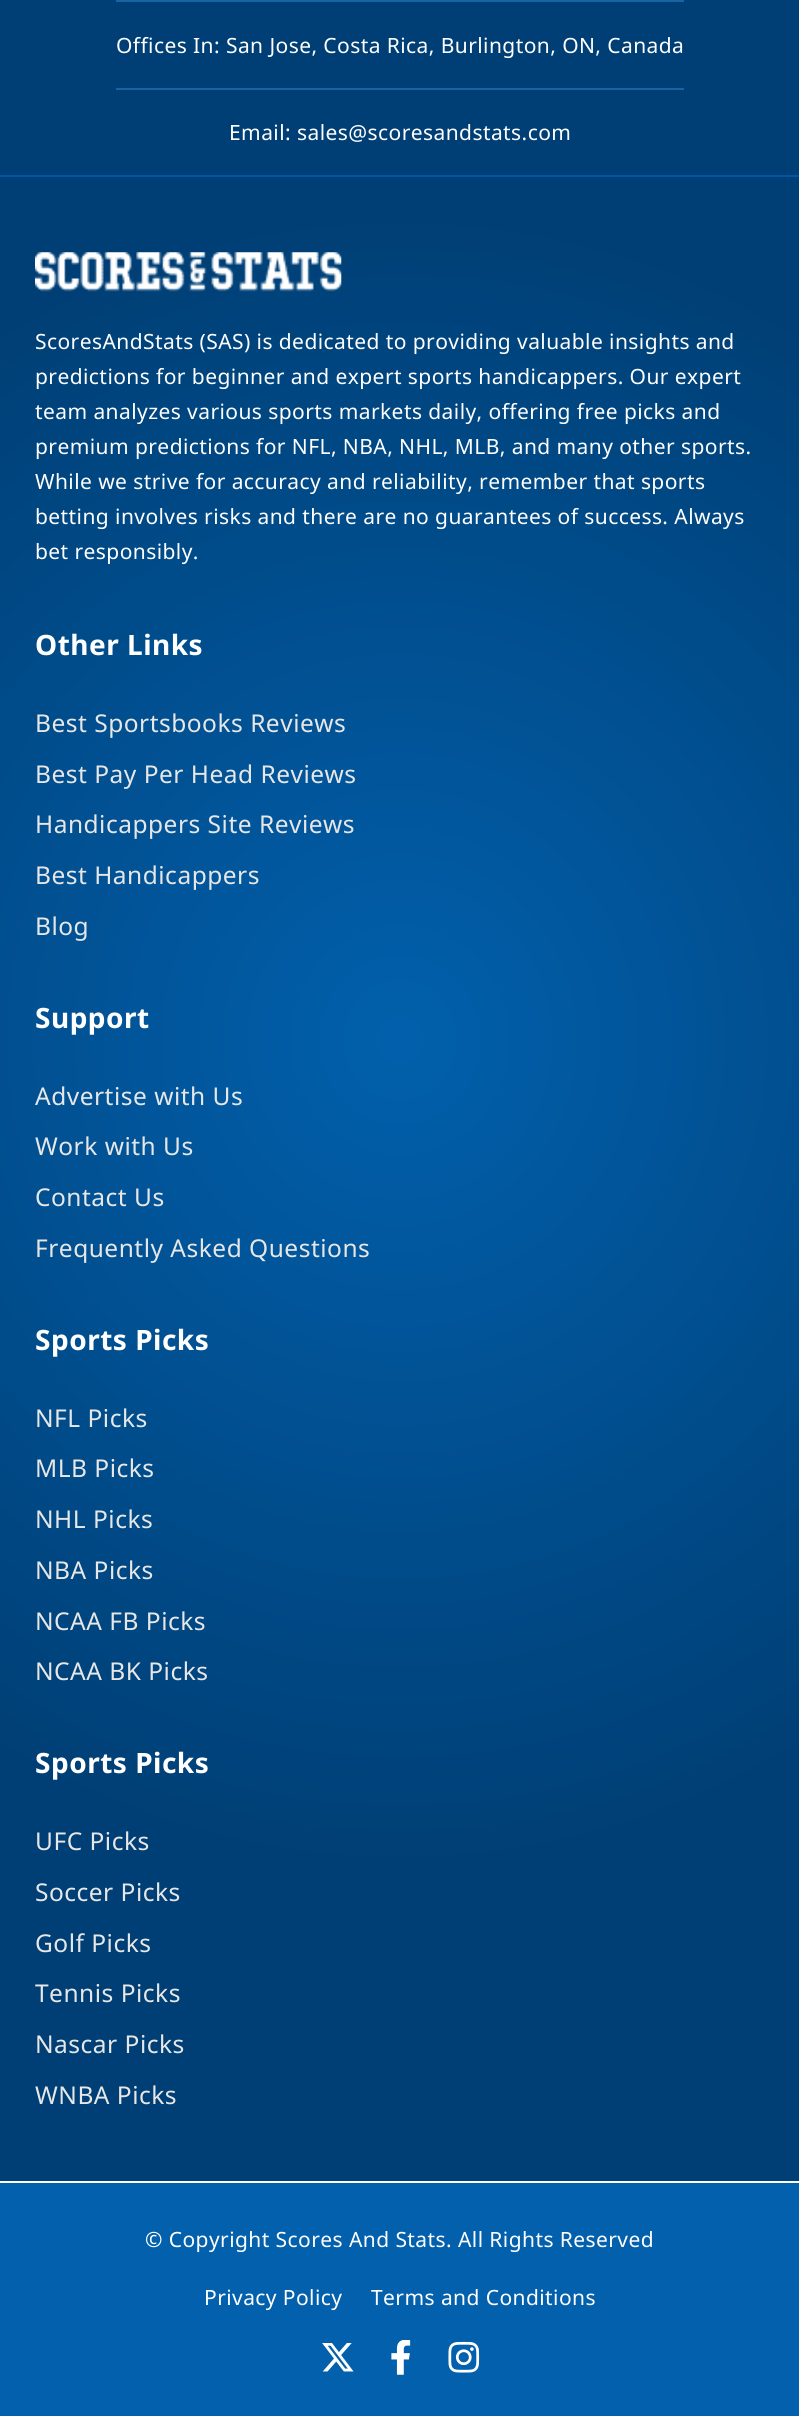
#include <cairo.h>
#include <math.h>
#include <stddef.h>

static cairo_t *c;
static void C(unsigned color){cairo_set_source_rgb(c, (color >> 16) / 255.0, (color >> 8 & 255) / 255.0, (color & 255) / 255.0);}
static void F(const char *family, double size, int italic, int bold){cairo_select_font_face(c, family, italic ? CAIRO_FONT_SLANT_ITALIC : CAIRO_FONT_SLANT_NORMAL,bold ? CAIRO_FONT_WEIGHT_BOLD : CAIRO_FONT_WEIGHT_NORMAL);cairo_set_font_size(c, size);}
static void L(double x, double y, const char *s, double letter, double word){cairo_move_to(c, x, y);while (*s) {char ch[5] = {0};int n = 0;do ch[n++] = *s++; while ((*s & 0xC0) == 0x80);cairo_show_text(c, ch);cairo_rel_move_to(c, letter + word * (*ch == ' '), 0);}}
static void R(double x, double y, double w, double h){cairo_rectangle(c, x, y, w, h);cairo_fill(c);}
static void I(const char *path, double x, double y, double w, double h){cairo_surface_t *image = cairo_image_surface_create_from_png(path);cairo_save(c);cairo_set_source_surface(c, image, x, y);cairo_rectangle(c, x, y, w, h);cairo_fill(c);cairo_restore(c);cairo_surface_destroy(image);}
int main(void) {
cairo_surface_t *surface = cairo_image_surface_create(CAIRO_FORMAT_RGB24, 799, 2416);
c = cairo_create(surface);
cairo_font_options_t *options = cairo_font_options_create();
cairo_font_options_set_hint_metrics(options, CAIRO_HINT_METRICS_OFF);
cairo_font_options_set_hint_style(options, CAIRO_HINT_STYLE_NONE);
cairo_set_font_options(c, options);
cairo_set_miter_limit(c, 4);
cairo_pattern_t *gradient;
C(0xffffff);
cairo_paint(c);
gradient = cairo_pattern_create_radial(0,0,0,0,0,1);
cairo_pattern_set_matrix(gradient, &(cairo_matrix_t){1.0 / 792, 0, 0, 1.0 / 828, -1.0 * 400 / 792, -1.0 * 1040 / 828});
cairo_pattern_add_color_stop_rgba(gradient,0,0.004,0.376,0.675,1);
cairo_pattern_add_color_stop_rgba(gradient,1,0,0.247,0.459,1);
cairo_set_source(c,gradient);
cairo_pattern_destroy(gradient);
R(0,0,799,2181);
C(0x0056a1);
R(0,175,799,2);
C(0x1764a2);
R(116,0,568,2);
R(116,88,568,2);
F("Noto Sans",21,0,0);
C(0xffffff);
L(116,53,"Offices In: San Jose, Costa Rica, Burlington, ON, Canada",.42,0);
L(229,140,"Email: sales@scoresandstats.com",.42,0);
I("1.png",35,252,307,40);
L(35,349,"ScoresAndStats (SAS) is dedicated to providing valuable insights and",.42,0);
L(35,384,"predictions for beginner and expert sports handicappers. Our expert",.42,0);
L(35,419,"team analyzes various sports markets daily, offering free picks and",.42,0);
L(35,454,"premium predictions for NFL, NBA, NHL, MLB, and many other sports.",.42,0);
L(35,489,"While we strive for accuracy and reliability, remember that sports",.42,0);
L(35,524,"betting involves risks and there are no guarantees of success. Always",.42,0);
L(35,559,"bet responsibly.",.42,0);
F("Noto Sans",28,0,1);
L(35,655,"Other Links",.5,0);
F("Noto Sans",24.5,0,0);
C(0xe7e7e7);
L(35,732,"Best Sportsbooks Reviews",.5,0);
L(35,783,"Best Pay Per Head Reviews",.5,0);
L(35,833,"Handicappers Site Reviews",.5,0);
L(35,884,"Best Handicappers",.5,0);
L(35,935,"Blog",.5,0);
F("Noto Sans",28,0,1);
C(0xffffff);
L(35,1028,"Support",.5,0);
F("Noto Sans",24.5,0,0);
C(0xe7e7e7);
L(35,1105,"Advertise with Us",.5,0);
L(35,1155,"Work with Us",.5,0);
L(35,1206,"Contact Us",.5,0);
L(35,1257,"Frequently Asked Questions",.5,0);
F("Noto Sans",28,0,1);
C(0xffffff);
L(35,1350,"Sports Picks",.5,0);
F("Noto Sans",24.5,0,0);
C(0xe7e7e7);
L(35,1427,"NFL Picks",.5,0);
L(35,1477,"MLB Picks",.5,0);
L(35,1528,"NHL Picks",.5,0);
L(35,1579,"NBA Picks",.5,0);
L(35,1630,"NCAA FB Picks",.5,0);
L(35,1680,"NCAA BK Picks",.5,0);
F("Noto Sans",28,0,1);
C(0xffffff);
L(35,1773,"Sports Picks",.5,0);
F("Noto Sans",24.5,0,0);
C(0xe7e7e7);
L(35,1850,"UFC Picks",.5,0);
L(35,1901,"Soccer Picks",.5,0);
L(35,1952,"Golf Picks",.5,0);
L(35,2002,"Tennis Picks",.5,0);
L(35,2053,"Nascar Picks",.5,0);
L(35,2104,"WNBA Picks",.5,0);
C(0x0260ac);
R(0,2183,799,233);
F("Noto Sans",21,0,0);
C(0xffffff);
L(145,2247,"© Copyright Scores And Stats. All Rights Reserved",.42,0);
L(204,2305,"Privacy Policy",.42,0);
L(371,2305,"Terms and Conditions",.42,0);
I("2.png",322,2343,32,29);
I("3.png",391,2340,20,35);
I("4.png",448,2341,32,32);
cairo_surface_write_to_png(surface, "o.png");
cairo_font_options_destroy(options);
cairo_destroy(c);
cairo_surface_destroy(surface);
return 0;
}
